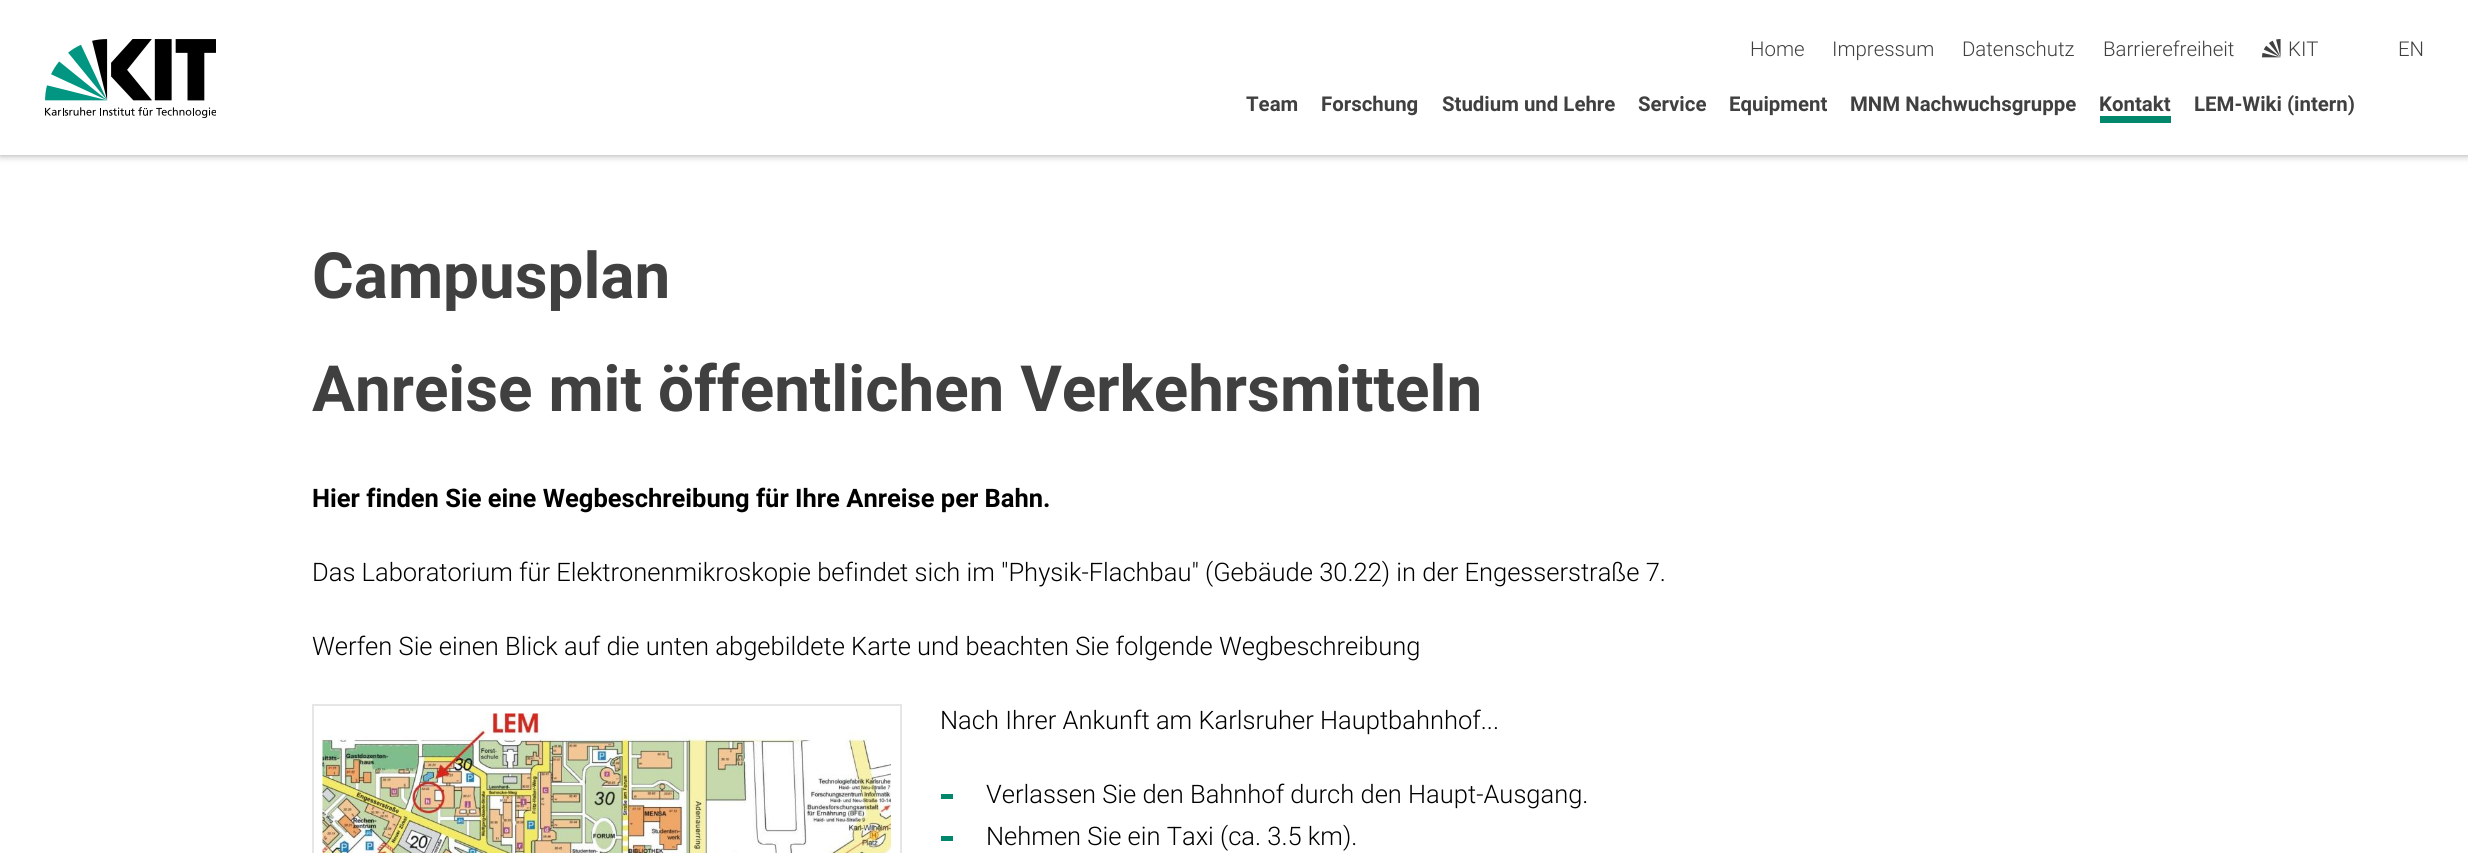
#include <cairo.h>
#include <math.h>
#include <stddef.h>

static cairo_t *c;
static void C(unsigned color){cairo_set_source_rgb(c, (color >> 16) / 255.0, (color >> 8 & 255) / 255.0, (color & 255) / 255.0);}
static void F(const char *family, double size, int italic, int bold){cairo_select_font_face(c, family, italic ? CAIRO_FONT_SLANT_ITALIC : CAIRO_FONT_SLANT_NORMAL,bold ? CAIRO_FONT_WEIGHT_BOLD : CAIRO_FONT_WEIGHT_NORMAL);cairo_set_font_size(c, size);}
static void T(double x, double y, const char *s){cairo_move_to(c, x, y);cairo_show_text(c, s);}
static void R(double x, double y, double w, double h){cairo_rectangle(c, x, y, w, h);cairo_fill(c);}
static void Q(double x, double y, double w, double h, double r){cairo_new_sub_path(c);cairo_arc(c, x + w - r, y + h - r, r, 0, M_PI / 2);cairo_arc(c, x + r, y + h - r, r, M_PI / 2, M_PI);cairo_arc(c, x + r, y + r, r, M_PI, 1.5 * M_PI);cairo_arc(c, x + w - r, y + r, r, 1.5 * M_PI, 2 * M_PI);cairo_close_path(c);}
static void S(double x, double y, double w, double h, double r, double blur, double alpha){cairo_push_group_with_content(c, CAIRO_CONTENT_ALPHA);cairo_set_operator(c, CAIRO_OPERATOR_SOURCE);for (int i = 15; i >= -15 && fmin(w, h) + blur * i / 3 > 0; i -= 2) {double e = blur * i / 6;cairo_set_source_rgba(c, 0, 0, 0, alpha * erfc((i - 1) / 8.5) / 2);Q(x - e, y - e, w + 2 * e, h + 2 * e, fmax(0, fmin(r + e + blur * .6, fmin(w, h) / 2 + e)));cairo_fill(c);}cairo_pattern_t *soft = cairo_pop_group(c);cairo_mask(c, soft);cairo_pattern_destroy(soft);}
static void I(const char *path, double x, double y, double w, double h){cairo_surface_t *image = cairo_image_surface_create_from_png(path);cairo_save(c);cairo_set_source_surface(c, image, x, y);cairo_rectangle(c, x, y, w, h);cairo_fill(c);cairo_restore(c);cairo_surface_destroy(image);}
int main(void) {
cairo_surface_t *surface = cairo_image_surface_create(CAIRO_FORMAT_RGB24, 2468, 853);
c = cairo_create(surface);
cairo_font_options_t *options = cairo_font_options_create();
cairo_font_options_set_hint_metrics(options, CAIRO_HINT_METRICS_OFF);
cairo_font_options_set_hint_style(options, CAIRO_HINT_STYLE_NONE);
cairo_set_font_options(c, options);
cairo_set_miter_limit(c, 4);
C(0xffffff);
cairo_paint(c);
C(0x404040);
S(0,0,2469,155,0,4,.5);
C(0xffffff);
R(0,0,2468,155);
I("1.png",45,39,171,79);
F("Roboto Light",20.4,0,0);
C(0x404040);
T(1750,56,"Home");
T(1832,56,"Impressum");
T(1962,56,"Datenschutz");
T(2103,56,"Barrierefreiheit");
I("2.png",2262,39,19,19);
T(2288,56,"KIT");
T(2398,56,"EN");
F("Roboto",20.4,0,1);
T(1246,111,"Team");
T(1321,111,"Forschung");
T(1442,111,"Studium und Lehre");
T(1638,111,"Service");
T(1729,111,"Equipment");
T(1850,111,"MNM Nachwuchsgruppe");
T(2099,111,"Kontakt");
C(0x00876c);
R(2100,116,71,7);
C(0x404040);
T(2194,111,"LEM-Wiki (intern)");
F("Roboto",63.75,0,1);
T(312,298,"Campusplan");
T(312,411,"Anreise mit öffentlichen Verkehrsmitteln");
F("Roboto",25.5,0,1);
C(0x000000);
T(312,507,"Hier finden Sie eine Wegbeschreibung für Ihre Anreise per Bahn.");
F("Roboto Light",25.5,0,0);
T(312,581,"Das Laboratorium für Elektronenmikroskopie befindet sich im \"Physik-Flachbau\" (Gebäude 30.22) in der Engesserstraße 7.");
T(312,655,"Werfen Sie einen Blick auf die unten abgebildete Karte und beachten Sie folgende Wegbeschreibung");
cairo_rectangle(c,313,705,588,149);
C(0xe6e6e6);
cairo_stroke(c);
I("3.png",322,713,569,140);
C(0x000000);
T(940,729,"Nach Ihrer Ankunft am Karlsruher Hauptbahnhof...");
C(0x00876c);
R(941,794,12,5);
C(0x000000);
T(986,803,"Verlassen Sie den Bahnhof durch den Haupt-Ausgang.");
C(0x00876c);
R(941,836,12,5);
C(0x000000);
T(986,845,"Nehmen Sie ein Taxi (ca. 3.5 km).");
cairo_surface_write_to_png(surface, "o.png");
cairo_font_options_destroy(options);
cairo_destroy(c);
cairo_surface_destroy(surface);
return 0;
}
